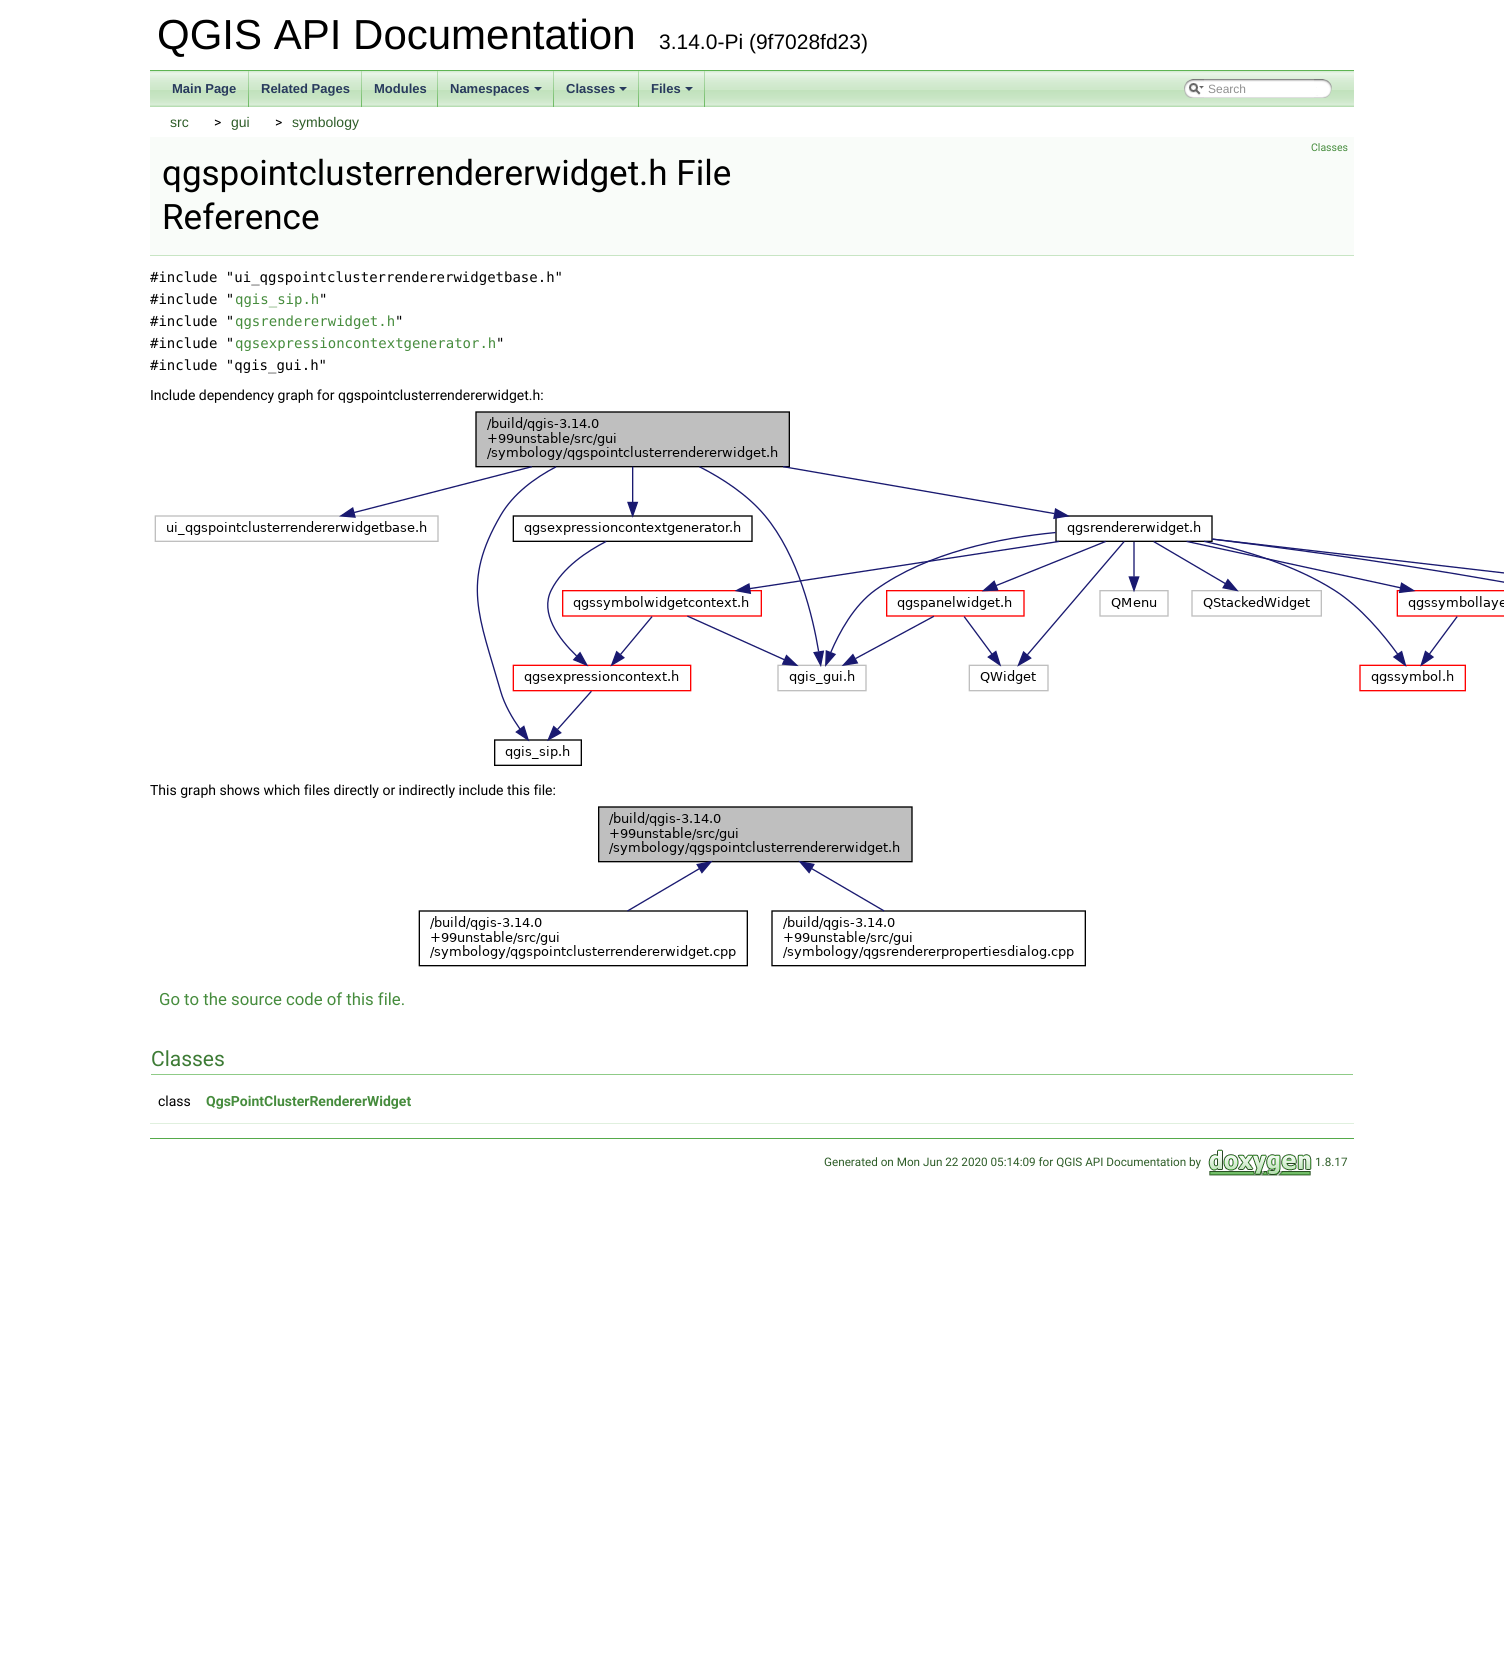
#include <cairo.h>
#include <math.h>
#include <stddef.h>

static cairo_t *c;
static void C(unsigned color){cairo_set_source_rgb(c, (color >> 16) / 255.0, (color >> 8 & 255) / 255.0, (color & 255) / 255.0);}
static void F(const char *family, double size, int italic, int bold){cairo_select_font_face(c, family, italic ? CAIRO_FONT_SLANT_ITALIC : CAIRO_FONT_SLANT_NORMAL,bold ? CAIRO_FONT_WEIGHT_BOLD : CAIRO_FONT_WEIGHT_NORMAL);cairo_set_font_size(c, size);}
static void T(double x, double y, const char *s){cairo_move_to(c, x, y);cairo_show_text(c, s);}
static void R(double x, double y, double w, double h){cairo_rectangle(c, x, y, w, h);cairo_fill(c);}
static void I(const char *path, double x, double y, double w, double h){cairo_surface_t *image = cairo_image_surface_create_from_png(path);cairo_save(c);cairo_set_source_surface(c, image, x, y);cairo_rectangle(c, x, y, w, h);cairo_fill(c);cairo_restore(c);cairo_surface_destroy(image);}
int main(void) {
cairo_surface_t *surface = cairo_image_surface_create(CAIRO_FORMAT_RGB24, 1504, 1666);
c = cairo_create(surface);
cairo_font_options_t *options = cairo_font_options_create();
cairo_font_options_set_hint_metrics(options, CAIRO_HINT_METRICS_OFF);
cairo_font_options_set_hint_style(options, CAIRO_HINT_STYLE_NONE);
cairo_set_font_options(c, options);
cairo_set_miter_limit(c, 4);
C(0xffffff);
cairo_paint(c);
C(0x5fb453);
R(150,70,1204,1);
F("Liberation Sans",42,0,0);
C(0x000000);
T(157,49,"QGIS API Documentation");
F("Liberation Sans",21,0,0);
T(659,49,"3.14.0-Pi (9f7028fd23)");
I("1.png",150,71,1204,36);
I("2.png",248,71,1,36);
F("Liberation Sans",13,0,1);
C(0x283a5d);
T(172,93,"Main Page");
I("2.png",361,71,1,36);
T(261,93,"Related Pages");
I("2.png",437,71,1,36);
T(374,93,"Modules");
I("2.png",553,71,1,36);
T(450,93,"Namespaces");
cairo_new_path(c);
cairo_move_to(c,534,87);
cairo_line_to(c,542,87);
cairo_line_to(c,538,91);
cairo_close_path(c);
cairo_fill(c);
I("2.png",638,71,1,36);
T(566,93,"Classes");
cairo_new_path(c);
cairo_move_to(c,619,87);
cairo_line_to(c,627,87);
cairo_line_to(c,623,91);
cairo_close_path(c);
cairo_fill(c);
I("2.png",704,71,1,36);
T(651,93,"Files");
cairo_new_path(c);
cairo_move_to(c,685,87);
cairo_line_to(c,693,87);
cairo_line_to(c,689,91);
cairo_close_path(c);
cairo_fill(c);
I("3.png",1184,79,20,19);
I("4.png",1189,83,15,12);
I("5.png",1204,79,110,19);
F("Liberation Sans",12,0,0);
C(0x909090);
T(1208,93,"Search");
I("6.png",1314,79,18,19);
F("Liberation Sans",14,0,0);
C(0x2e5d28);
T(170,127,"src");
F("Roboto",14,0,0);
C(0x000000);
T(214,127,">");
F("Liberation Sans",14,0,0);
C(0x2e5d28);
T(231,127,"gui");
F("Roboto",14,0,0);
C(0x000000);
T(275,127,">");
F("Liberation Sans",14,0,0);
C(0x2e5d28);
T(292,127,"symbology");
C(0xf9fcf9);
R(150,137,1204,118);
C(0xc8e5c4);
R(150,255,1204,1);
F("Roboto",10.5,0,0);
C(0x468c3d);
T(1311,151,"Classes");
F("Roboto",35,0,0);
C(0x000000);
T(162,185,"qgspointclusterrendererwidget.h File");
T(162,229,"Reference");
F("DejaVu Sans Mono",14,0,0);
T(150,282,"#include \"ui_qgspointclusterrendererwidgetbase.h\"");
T(150,304,"#include \"");
C(0x468c3d);
T(235,304,"qgis_sip.h");
C(0x000000);
T(319,304,"\"");
T(150,326,"#include \"");
C(0x468c3d);
T(235,326,"qgsrendererwidget.h");
C(0x000000);
T(395,326,"\"");
T(150,348,"#include \"");
C(0x468c3d);
T(235,348,"qgsexpressioncontextgenerator.h");
C(0x000000);
T(496,348,"\"");
T(150,370,"#include \"qgis_gui.h\"");
F("Roboto",14,0,0);
T(150,400,"Include dependency graph for qgspointclusterrendererwidget.h:");
I("7.png",154,411,1350,355);
T(150,795,"This graph shows which files directly or indirectly include this file:");
I("8.png",418,806,668,161);
F("Roboto",16.75,0,0);
C(0x468c3d);
T(159,1005,"Go to the source code of this file.");
C(0x8fcb87);
R(151,1074,1202,1);
F("Roboto",21,0,0);
C(0x3d7b35);
T(151,1066,"Classes");
F("Roboto",14,0,0);
C(0x000000);
T(158,1106,"class");
F("Roboto",14,0,1);
C(0x468c3d);
T(206,1106,"QgsPointClusterRendererWidget");
C(0xe0f0de);
R(150,1123,1204,1);
C(0x55aa4a);
R(150,1138,1204,1);
F("Roboto",11.7,0,0);
C(0x2e5d28);
T(824,1166,"Generated on Mon Jun 22 2020 05:14:09 for QGIS API Documentation by");
I("9.png",1208,1149,104,27);
T(1315,1166,"1.8.17");
cairo_surface_write_to_png(surface, "o.png");
cairo_font_options_destroy(options);
cairo_destroy(c);
cairo_surface_destroy(surface);
return 0;
}
